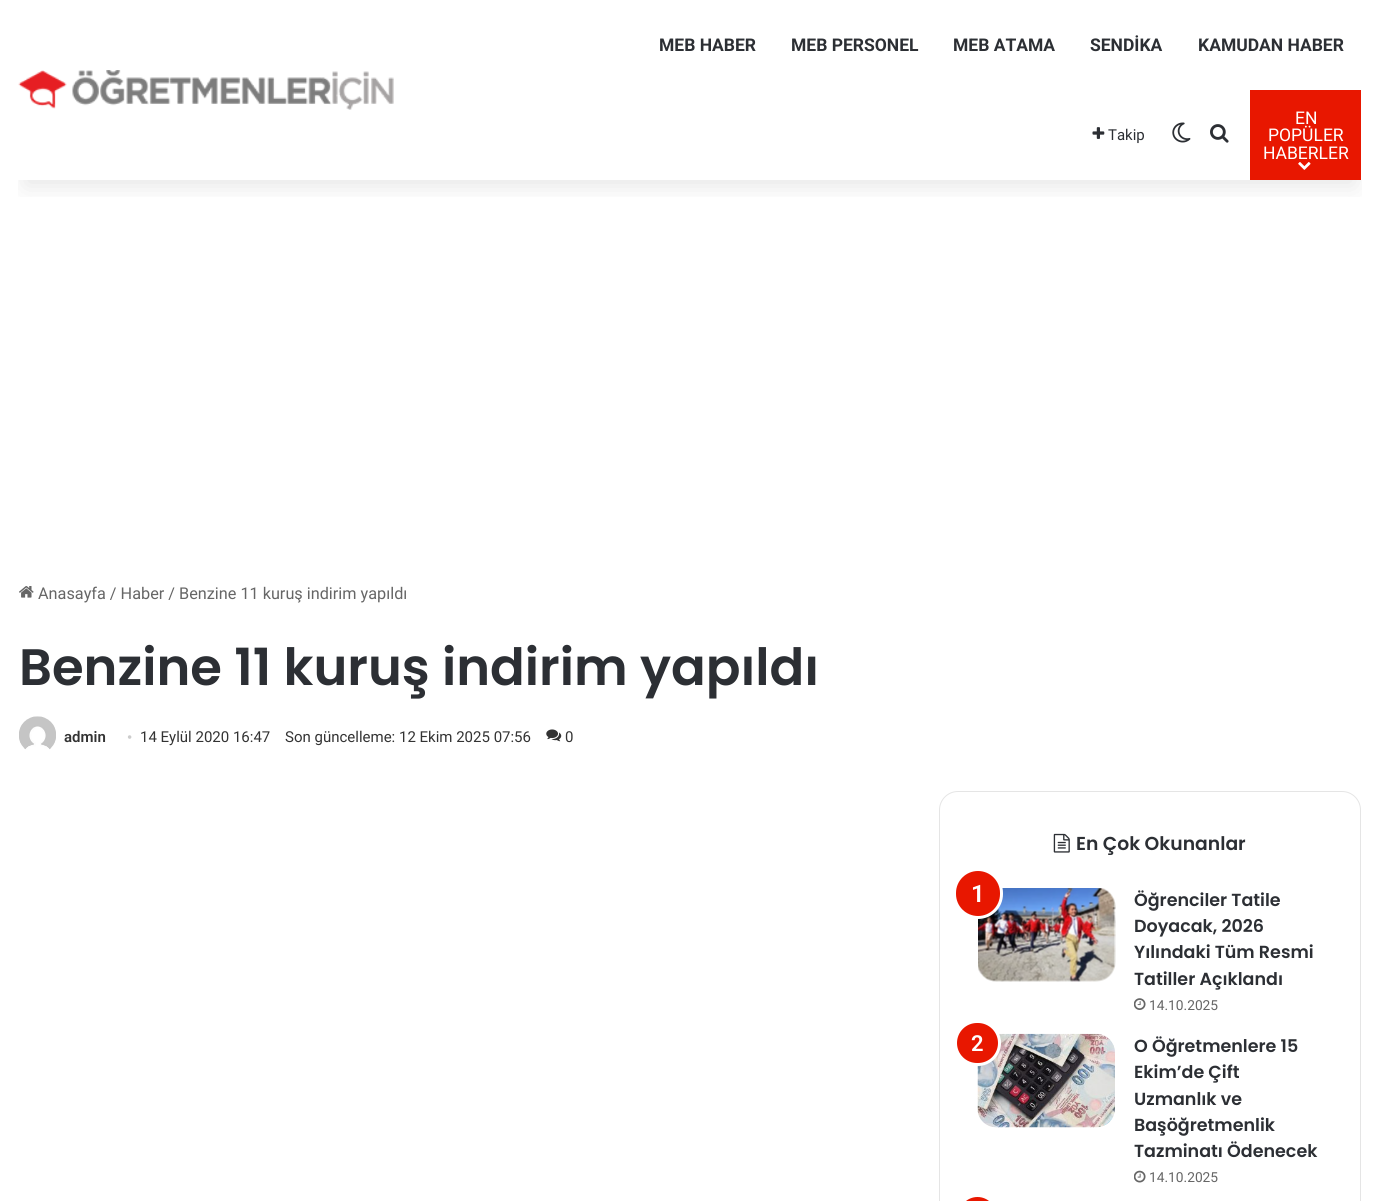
#include <cairo.h>
#include <math.h>
#include <stddef.h>

static cairo_t *c;
static void C(unsigned color){cairo_set_source_rgb(c, (color >> 16) / 255.0, (color >> 8 & 255) / 255.0, (color & 255) / 255.0);}
static void F(const char *family, double size, int italic, int bold){cairo_select_font_face(c, family, italic ? CAIRO_FONT_SLANT_ITALIC : CAIRO_FONT_SLANT_NORMAL,bold ? CAIRO_FONT_WEIGHT_BOLD : CAIRO_FONT_WEIGHT_NORMAL);cairo_set_font_size(c, size);}
static void T(double x, double y, const char *s){cairo_move_to(c, x, y);cairo_show_text(c, s);}
static void R(double x, double y, double w, double h){cairo_rectangle(c, x, y, w, h);cairo_fill(c);}
static void Q(double x, double y, double w, double h, double r){cairo_new_sub_path(c);cairo_arc(c, x + w - r, y + h - r, r, 0, M_PI / 2);cairo_arc(c, x + r, y + h - r, r, M_PI / 2, M_PI);cairo_arc(c, x + r, y + r, r, M_PI, 1.5 * M_PI);cairo_arc(c, x + w - r, y + r, r, 1.5 * M_PI, 2 * M_PI);cairo_close_path(c);}
static void S(double x, double y, double w, double h, double r, double blur, double alpha){cairo_push_group_with_content(c, CAIRO_CONTENT_ALPHA);cairo_set_operator(c, CAIRO_OPERATOR_SOURCE);for (int i = 15; i >= -15 && fmin(w, h) + blur * i / 3 > 0; i -= 2) {double e = blur * i / 6;cairo_set_source_rgba(c, 0, 0, 0, alpha * erfc((i - 1) / 8.5) / 2);Q(x - e, y - e, w + 2 * e, h + 2 * e, fmax(0, fmin(r + e + blur * .6, fmin(w, h) / 2 + e)));cairo_fill(c);}cairo_pattern_t *soft = cairo_pop_group(c);cairo_mask(c, soft);cairo_pattern_destroy(soft);}
static void I(const char *path, double x, double y, double w, double h){cairo_surface_t *image = cairo_image_surface_create_from_png(path);cairo_save(c);cairo_set_source_surface(c, image, x, y);cairo_rectangle(c, x, y, w, h);cairo_fill(c);cairo_restore(c);cairo_surface_destroy(image);}
int main(void) {
cairo_surface_t *surface = cairo_image_surface_create(CAIRO_FORMAT_RGB24, 1379, 1201);
c = cairo_create(surface);
cairo_font_options_t *options = cairo_font_options_create();
cairo_font_options_set_hint_metrics(options, CAIRO_HINT_METRICS_OFF);
cairo_font_options_set_hint_style(options, CAIRO_HINT_STYLE_NONE);
cairo_set_font_options(c, options);
cairo_set_miter_limit(c, 4);
C(0xffffff);
cairo_paint(c);
cairo_save(c);
cairo_rectangle(c,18,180,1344,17);
cairo_clip(c);
C(0x000000);
S(25,56,1330,130,0,12.5,.1);
cairo_restore(c);
I("1.png",18,70,376,40);
F("Roboto",17.5,0,1);
C(0x2c2f34);
T(659,51,"MEB HABER");
T(791,51,"MEB PERSONEL");
T(953,51,"MEB ATAMA");
T(1090,51,"SENDİKA");
T(1198,51,"KAMUDAN HABER");
I("2.png",1092,127,13,12);
F("Roboto",15,0,0);
T(1108,140,"Takip");
I("3.png",1172,122,19,21);
I("4.png",1210,124,19,19);
C(0xe81700);
R(1250,90,111,90);
F("Roboto",17.5,0,0);
C(0xffffff);
T(1295,124,"EN");
T(1268,141,"POPÜLER");
T(1263,159,"HABERLER");
I("5.png",1298,162,13,8);
I("6.png",19,586,15,12);
F("Roboto",16.25,0,0);
C(0x666666);
T(38,599,"Anasayfa / Haber / Benzine 11 kuruş indirim yapıldı");
F("Poppins SemiBold",51.25,0,0);
C(0x2c2f34);
T(19,685,"Benzine 11 kuruş indirim yapıldı");
I("7.png",19,716,37,34);
F("Roboto SemiBold",15,0,0);
C(0x333333);
T(64,742,"admin");
F("Liberation Serif",15,0,0);
C(0xcccccc);
T(127,742,"•");
F("Roboto",15,0,0);
C(0x333333);
T(140,742,"14 Eylül 2020 16:47");
T(285,742,"Son güncelleme: 12 Ekim 2025 07:56");
I("8.png",546,729,16,13);
T(565,742,"0");
Q(939.5,791.5,421,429,18.5);
C(0xe5e5e5);
cairo_set_line_width(c,1);
cairo_stroke(c);
I("9.png",1053,833,17,20);
F("Poppins SemiBold",18.75,0,0);
C(0x2c2f34);
T(1076,850,"En Çok Okunanlar");
I("10.png",978,888,138,94);
C(0xe81700);
Q(954.5,869.5,47,48,23.5);
cairo_fill_preserve(c);
C(0xffffff);
cairo_set_line_width(c,3);
cairo_stroke(c);
F("Roboto SemiBold",24,0,0);
T(971,902,"1");
F("Poppins SemiBold",17.5,0,0);
C(0x2c2f34);
T(1134,906,"Öğrenciler Tatile");
T(1134,932,"Doyacak, 2026");
T(1134,958,"Yılındaki Tüm Resmi");
T(1134,985,"Tatiller Açıklandı");
I("11.png",1134,998,12,12);
F("Roboto",13.75,0,0);
C(0x666666);
T(1149,1010,"14.10.2025");
I("12.png",977,1033,138,95);
C(0xe81700);
Q(955.5,1021.5,44,43,21.5);
cairo_fill_preserve(c);
C(0xffffff);
cairo_stroke(c);
F("Roboto SemiBold",22,0,0);
T(971,1051,"2");
F("Poppins SemiBold",17.5,0,0);
C(0x2c2f34);
T(1134,1052,"O Öğretmenlere 15");
T(1134,1078,"Ekim’de Çift");
T(1134,1105,"Uzmanlık ve");
T(1134,1131,"Başöğretmenlik");
T(1134,1157,"Tazminatı Ödenecek");
I("13.png",1134,1170,12,13);
F("Roboto",13.75,0,0);
C(0x666666);
T(1149,1182,"14.10.2025");
C(0xe81700);
Q(957.5,1195.5,40,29,20);
cairo_fill_preserve(c);
C(0xffffff);
cairo_stroke(c);
cairo_surface_write_to_png(surface, "o.png");
cairo_font_options_destroy(options);
cairo_destroy(c);
cairo_surface_destroy(surface);
return 0;
}
